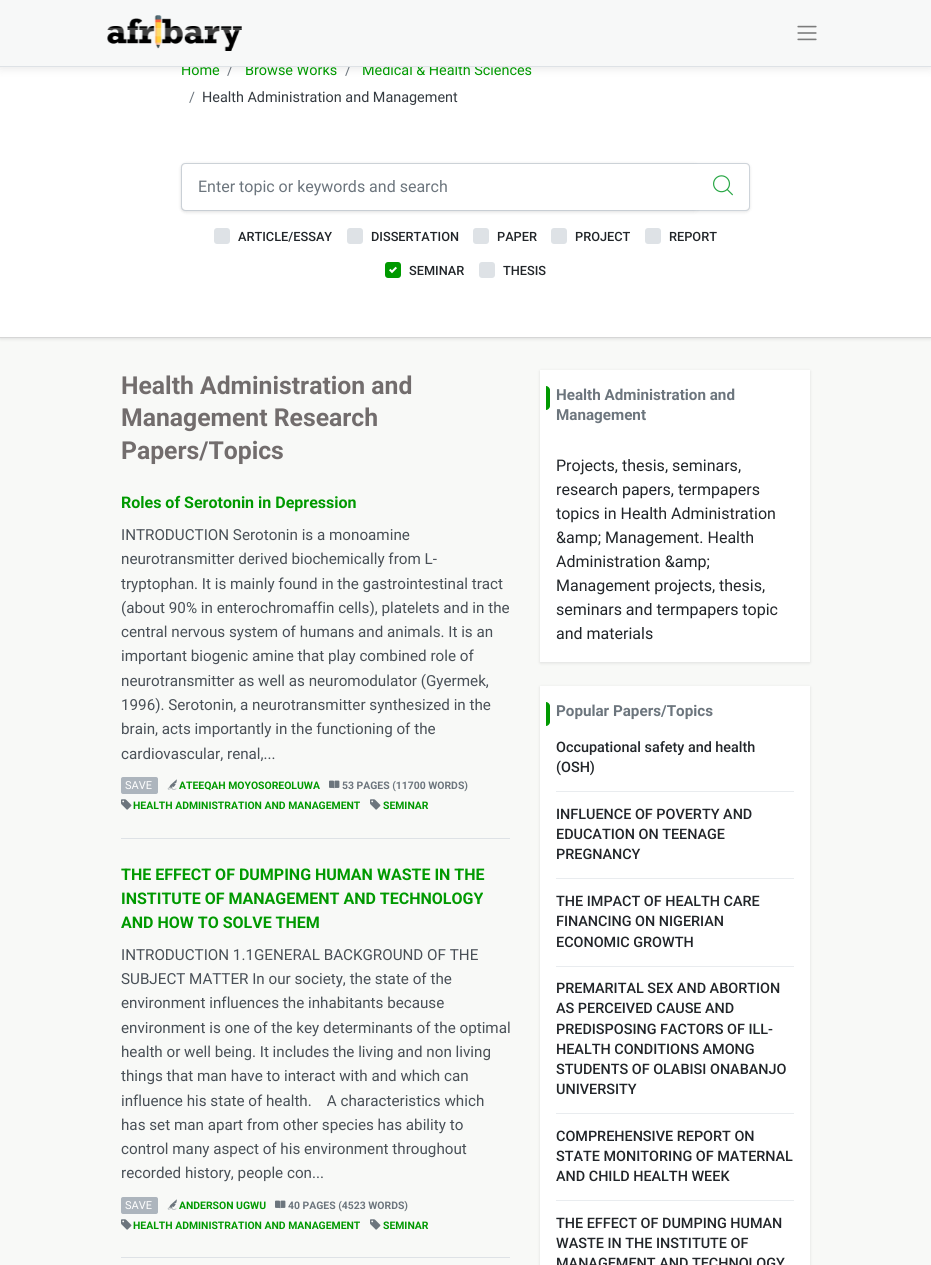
#include <cairo.h>
#include <math.h>
#include <stddef.h>

static cairo_t *c;
static void C(unsigned color){cairo_set_source_rgb(c, (color >> 16) / 255.0, (color >> 8 & 255) / 255.0, (color & 255) / 255.0);}
static void F(const char *family, double size, int italic, int bold){cairo_select_font_face(c, family, italic ? CAIRO_FONT_SLANT_ITALIC : CAIRO_FONT_SLANT_NORMAL,bold ? CAIRO_FONT_WEIGHT_BOLD : CAIRO_FONT_WEIGHT_NORMAL);cairo_set_font_size(c, size);}
static void T(double x, double y, const char *s){cairo_move_to(c, x, y);cairo_show_text(c, s);}
static void R(double x, double y, double w, double h){cairo_rectangle(c, x, y, w, h);cairo_fill(c);}
static void Q(double x, double y, double w, double h, double r){cairo_new_sub_path(c);cairo_arc(c, x + w - r, y + h - r, r, 0, M_PI / 2);cairo_arc(c, x + r, y + h - r, r, M_PI / 2, M_PI);cairo_arc(c, x + r, y + r, r, M_PI, 1.5 * M_PI);cairo_arc(c, x + w - r, y + r, r, 1.5 * M_PI, 2 * M_PI);cairo_close_path(c);}
static void S(double x, double y, double w, double h, double r, double blur, double alpha){cairo_push_group_with_content(c, CAIRO_CONTENT_ALPHA);cairo_set_operator(c, CAIRO_OPERATOR_SOURCE);for (int i = 15; i >= -15 && fmin(w, h) + blur * i / 3 > 0; i -= 2) {double e = blur * i / 6;cairo_set_source_rgba(c, 0, 0, 0, alpha * erfc((i - 1) / 8.5) / 2);Q(x - e, y - e, w + 2 * e, h + 2 * e, fmax(0, fmin(r + e + blur * .6, fmin(w, h) / 2 + e)));cairo_fill(c);}cairo_pattern_t *soft = cairo_pop_group(c);cairo_mask(c, soft);cairo_pattern_destroy(soft);}
static void I(const char *path, double x, double y, double w, double h){cairo_surface_t *image = cairo_image_surface_create_from_png(path);cairo_save(c);cairo_set_source_surface(c, image, x, y);cairo_rectangle(c, x, y, w, h);cairo_fill(c);cairo_restore(c);cairo_surface_destroy(image);}
int main(void) {
cairo_surface_t *surface = cairo_image_surface_create(CAIRO_FORMAT_RGB24, 931, 1265);
c = cairo_create(surface);
cairo_font_options_t *options = cairo_font_options_create();
cairo_font_options_set_hint_metrics(options, CAIRO_HINT_METRICS_OFF);
cairo_font_options_set_hint_style(options, CAIRO_HINT_STYLE_NONE);
cairo_set_font_options(c, options);
cairo_set_miter_limit(c, 4);
C(0xf8f9f7);
cairo_paint(c);
C(0x000000);
S(0,29,931,310,0,1.5,.1);
C(0xffffff);
R(0,67,931,270);
C(0x000000);
S(0,1,931,67,0,5,.1);
F("Roboto",14.4,0,0);
C(0x009900);
T(181,75,"Home");
C(0x6c757d);
T(227,75,"/");
C(0x009900);
T(245,75,"Browse Works");
C(0x6c757d);
T(345,75,"/");
C(0x009900);
T(362,75,"Medical & Health Sciences");
C(0xf7f8f8);
R(0,0,931,66);
C(0xdee2e6);
R(0,66,931,1);
I("1.png",107,15,135,36);
I("2.png",797,25,20,16);
C(0xd6d6d6);
R(0,337,931,1);
C(0x6c757d);
T(189,102,"/");
C(0x343a40);
T(202,102,"Health Administration and Management");
C(0x000000);
S(181,164,569,48,4,1.5,.1);
Q(181.5,163.5,568,47,3.5);
C(0xced4da);
cairo_set_line_width(c,1);
cairo_stroke(c);
C(0x000000);
S(182,165,516,46,4,2.5,.05);
C(0xffffff);
cairo_new_path(c);
cairo_move_to(c,186,164);
cairo_line_to(c,698,164);
cairo_line_to(c,698,210);
cairo_line_to(c,186,210);
cairo_curve_to(c,184,210,182,208,182,206);
cairo_line_to(c,182,168);
cairo_curve_to(c,182,166,184,164,186,164);
cairo_close_path(c);
cairo_fill(c);
F("Roboto",16,0,0);
C(0x6c757d);
T(198,192,"Enter topic or keywords and search");
C(0xffffff);
cairo_new_path(c);
cairo_move_to(c,697,164);
cairo_line_to(c,745,164);
cairo_curve_to(c,747,164,749,166,749,168);
cairo_line_to(c,749,206);
cairo_curve_to(c,749,208,747,210,745,210);
cairo_line_to(c,697,210);
cairo_close_path(c);
cairo_fill(c);
I("3.png",713,175,20,21);
C(0xdee2e6);
Q(214,228,16,16,3);
cairo_fill(c);
F("Roboto Medium",12.75,0,0);
C(0x212529);
T(238,241,"ARTICLE/ESSAY");
C(0xdee2e6);
Q(347,228,16,16,3);
cairo_fill(c);
C(0x212529);
T(371,241,"DISSERTATION");
C(0xdee2e6);
Q(473,228,16,16,3);
cairo_fill(c);
C(0x212529);
T(497,241,"PAPER");
C(0xdee2e6);
Q(551,228,16,16,3);
cairo_fill(c);
C(0x212529);
T(575,241,"PROJECT");
C(0xdee2e6);
Q(645,228,16,16,3);
cairo_fill(c);
C(0x212529);
T(669,241,"REPORT");
C(0x009900);
Q(385,262,16,16,3);
cairo_fill(c);
C(0x212529);
T(409,275,"SEMINAR");
I("4.png",389,266,8,8);
C(0xdee2e6);
Q(479,262,16,16,3);
cairo_fill(c);
C(0x212529);
T(503,275,"THESIS");
F("Roboto",24.75,0,1);
C(0x726d6d);
T(121,394,"Health Administration and");
T(121,426,"Management Research");
T(121,459,"Papers/Topics");
C(0xdee2e6);
R(121,838,389,1);
F("Roboto",16,0,1);
C(0x009900);
T(121,508,"Roles of Serotonin in Depression");
F("Roboto",15.2,0,0);
C(0x495057);
T(121,540,"INTRODUCTION Serotonin is a monoamine");
T(121,564,"neurotransmitter derived biochemically from L-");
T(121,589,"tryptophan. It is mainly found in the gastrointestinal tract");
T(121,613,"(about 90% in enterochromaffin cells), platelets and in the");
T(121,637,"central nervous system of humans and animals. It is an");
T(121,661,"important biogenic amine that play combined role of");
T(121,686,"neurotransmitter as well as neuromodulator (Gyermek,");
T(121,710,"1996). Serotonin, a neurotransmitter synthesized in the");
T(121,734,"brain, acts importantly in the functioning of the");
T(121,759,"cardiovascular, renal,...");
C(0xadb5bd);
Q(121,777,37,17,2);
cairo_fill(c);
F("Roboto",11,0,0);
C(0xffffff);
T(125,789,"SAVE");
I("5.png",167,779,10,11);
F("Roboto",10.4,0,1);
C(0x009900);
T(179,789,"ATEEQAH MOYOSOREOLUWA");
I("6.png",329,780,11,9);
C(0x6c757d);
T(342,789,"53 PAGES (11700 WORDS)");
I("7.png",121,799,11,11);
C(0x009900);
T(133,809,"HEALTH ADMINISTRATION AND MANAGEMENT");
I("7.png",370,799,11,11);
T(383,809,"SEMINAR");
C(0xdee2e6);
R(121,1257,389,1);
F("Roboto",16,0,1);
C(0x009900);
T(121,880,"THE EFFECT OF DUMPING HUMAN WASTE IN THE");
T(121,904,"INSTITUTE OF MANAGEMENT AND TECHNOLOGY");
T(121,928,"AND HOW TO SOLVE THEM");
F("Roboto",15.2,0,0);
C(0x495057);
T(121,960,"INTRODUCTION 1.1GENERAL BACKGROUND OF THE");
T(121,984,"SUBJECT MATTER In our society, the state of the");
T(121,1008,"environment influences the inhabitants because");
T(121,1033,"environment is one of the key determinants of the optimal");
T(121,1057,"health or well being. It includes the living and non living");
T(121,1081,"things that man have to interact with and which can");
T(121,1106,"influence his state of health.    A characteristics which");
T(121,1130,"has set man apart from other species has ability to");
T(121,1154,"control many aspect of his environment throughout");
T(121,1178,"recorded history, people con...");
C(0xadb5bd);
Q(121,1197,37,17,2);
cairo_fill(c);
F("Roboto",11,0,0);
C(0xffffff);
T(125,1209,"SAVE");
I("5.png",167,1199,10,11);
F("Roboto",10.4,0,1);
C(0x009900);
T(179,1209,"ANDERSON UGWU");
I("6.png",275,1200,11,9);
C(0x6c757d);
T(288,1209,"40 PAGES (4523 WORDS)");
I("7.png",121,1219,11,11);
C(0x009900);
T(133,1229,"HEALTH ADMINISTRATION AND MANAGEMENT");
I("7.png",370,1219,11,11);
T(383,1229,"SEMINAR");
C(0x000000);
S(540,371,270,292,0,1.5,.1);
C(0xffffff);
R(540,370,270,292);
C(0x009900);
cairo_new_path(c);
cairo_move_to(c,546,386);
cairo_curve_to(c,548,386,550,388,550,390);
cairo_line_to(c,550,406);
cairo_curve_to(c,550,408,548,410,546,410);
cairo_close_path(c);
cairo_fill(c);
F("Roboto",15.2,0,1);
C(0x6c757d);
T(556,400,"Health Administration and");
T(556,420,"Management");
F("Roboto",16,0,0);
C(0x212529);
T(556,471,"Projects, thesis, seminars,");
T(556,495,"research papers, termpapers");
T(556,519,"topics in Health Administration");
T(556,543,"&amp; Management. Health");
T(556,567,"Administration &amp;");
T(556,591,"Management projects, thesis,");
T(556,615,"seminars and termpapers topic");
T(556,639,"and materials");
C(0x000000);
S(540,687,270,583,0,1.5,.1);
C(0xffffff);
R(540,686,270,579);
C(0x009900);
cairo_new_path(c);
cairo_move_to(c,546,702);
cairo_curve_to(c,548,702,550,704,550,706);
cairo_line_to(c,550,722);
cairo_curve_to(c,550,724,548,726,546,726);
cairo_close_path(c);
cairo_fill(c);
F("Roboto",15.2,0,1);
C(0x6c757d);
T(556,716,"Popular Papers/Topics");
C(0xe9ecef);
R(556,791,238,1);
F("Roboto Medium",14.4,0,0);
C(0x212529);
T(556,752,"Occupational safety and health");
T(556,772,"(OSH)");
C(0xe9ecef);
R(556,878,238,1);
C(0x212529);
T(556,819,"INFLUENCE OF POVERTY AND");
T(556,839,"EDUCATION ON TEENAGE");
T(556,859,"PREGNANCY");
C(0xe9ecef);
R(556,966,238,1);
C(0x212529);
T(556,906,"THE IMPACT OF HEALTH CARE");
T(556,926,"FINANCING ON NIGERIAN");
T(556,947,"ECONOMIC GROWTH");
C(0xe9ecef);
R(556,1113,238,1);
C(0x212529);
T(556,993,"PREMARITAL SEX AND ABORTION");
T(556,1013,"AS PERCEIVED CAUSE AND");
T(556,1034,"PREDISPOSING FACTORS OF ILL-");
T(556,1054,"HEALTH CONDITIONS AMONG");
T(556,1074,"STUDENTS OF OLABISI ONABANJO");
T(556,1094,"UNIVERSITY");
C(0xe9ecef);
R(556,1200,238,1);
C(0x212529);
T(556,1141,"COMPREHENSIVE REPORT ON");
T(556,1161,"STATE MONITORING OF MATERNAL");
T(556,1181,"AND CHILD HEALTH WEEK");
T(556,1228,"THE EFFECT OF DUMPING HUMAN");
T(556,1248,"WASTE IN THE INSTITUTE OF");
T(556,1268,"MANAGEMENT AND TECHNOLOGY");
cairo_surface_write_to_png(surface, "o.png");
cairo_font_options_destroy(options);
cairo_destroy(c);
cairo_surface_destroy(surface);
return 0;
}
